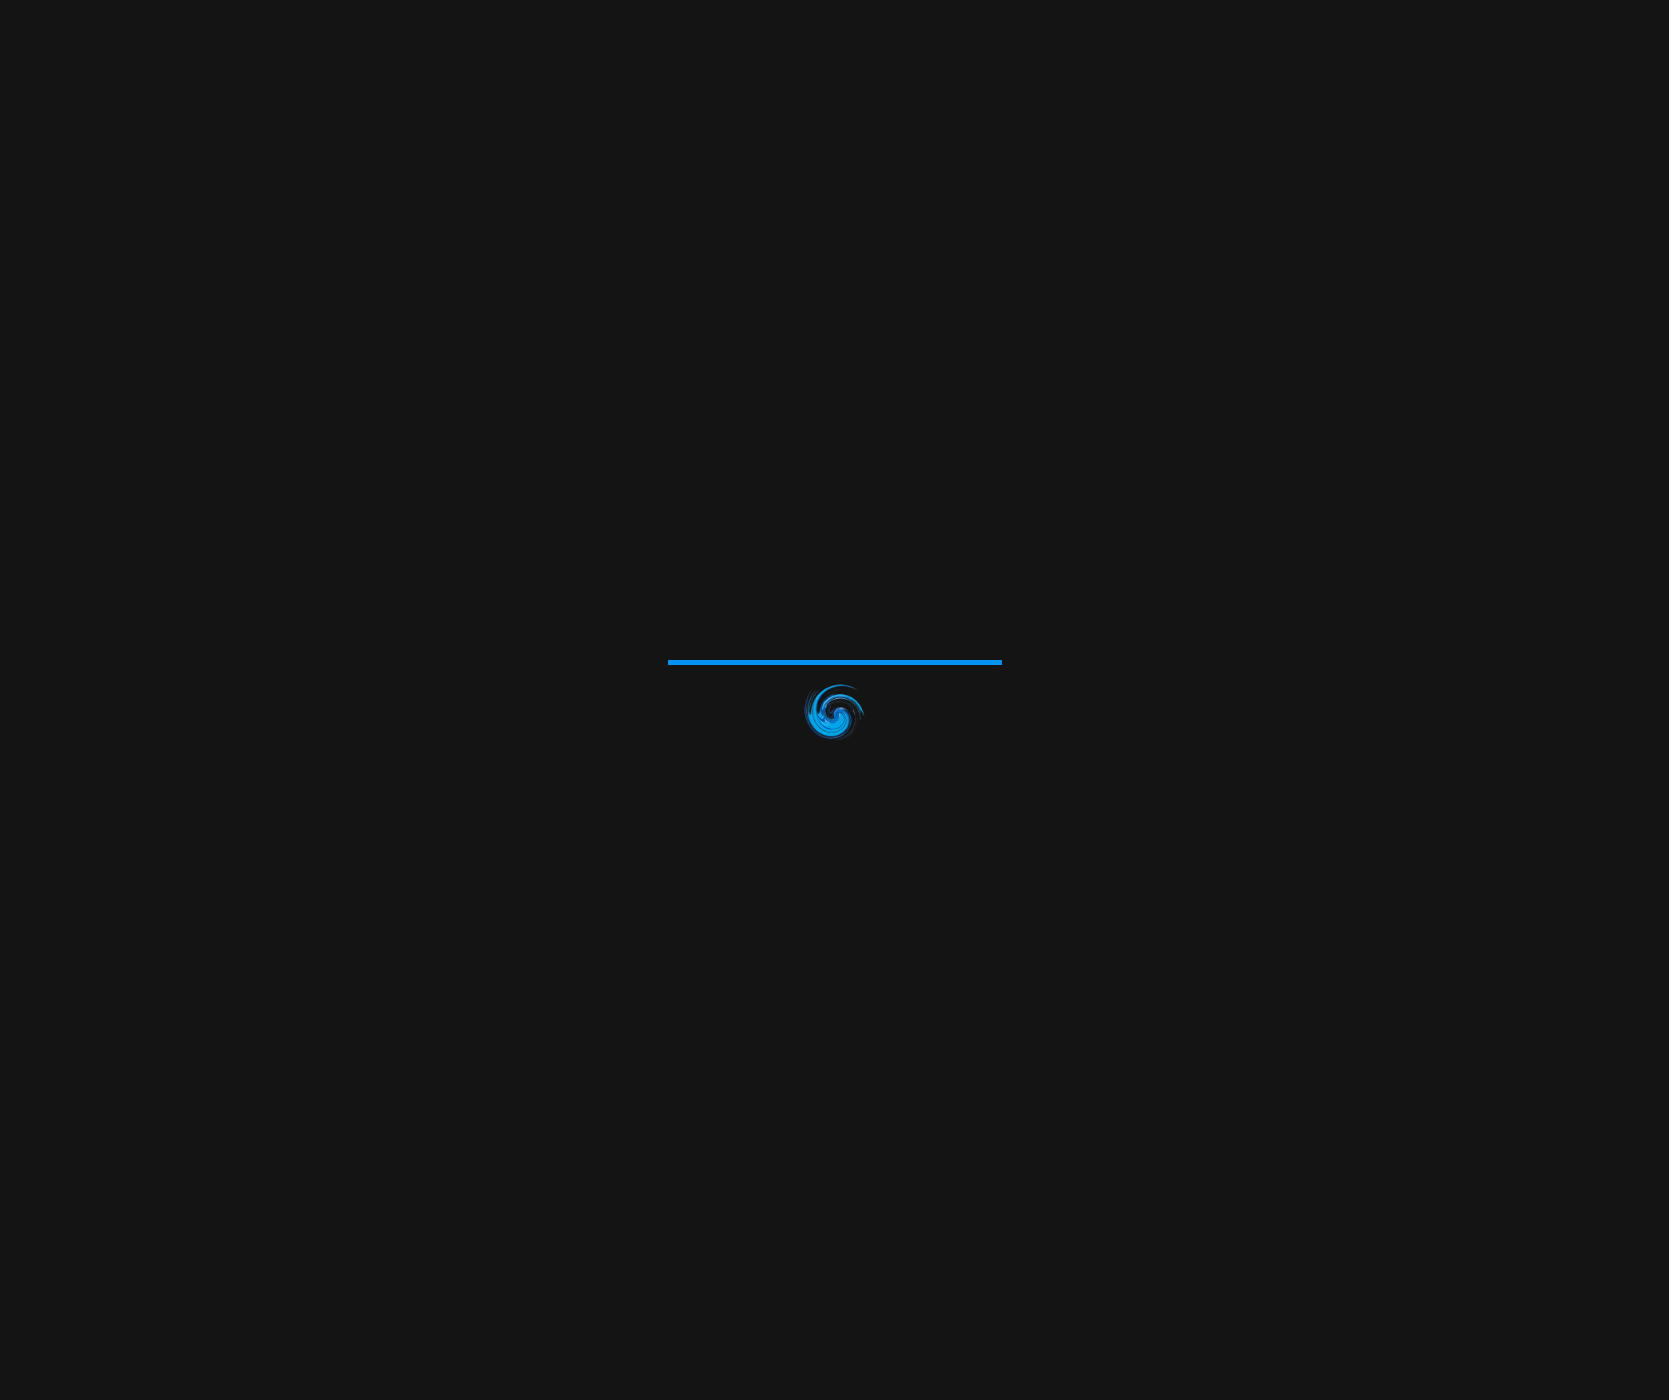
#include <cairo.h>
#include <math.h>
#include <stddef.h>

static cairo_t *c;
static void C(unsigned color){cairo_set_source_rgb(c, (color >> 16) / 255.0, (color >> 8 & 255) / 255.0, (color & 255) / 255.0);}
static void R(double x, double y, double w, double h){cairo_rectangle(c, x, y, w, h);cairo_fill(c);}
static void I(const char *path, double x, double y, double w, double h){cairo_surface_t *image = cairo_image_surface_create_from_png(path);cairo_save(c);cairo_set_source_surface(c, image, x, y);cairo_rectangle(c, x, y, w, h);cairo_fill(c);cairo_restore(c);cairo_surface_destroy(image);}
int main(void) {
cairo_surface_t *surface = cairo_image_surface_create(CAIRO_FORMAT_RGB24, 1669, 1400);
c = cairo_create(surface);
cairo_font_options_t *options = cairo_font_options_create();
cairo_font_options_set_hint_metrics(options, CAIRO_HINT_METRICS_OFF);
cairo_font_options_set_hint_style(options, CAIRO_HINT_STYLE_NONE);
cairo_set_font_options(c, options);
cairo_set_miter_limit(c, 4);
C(0x141414);
cairo_paint(c);
C(0x0493f2);
R(668,660,334,5);
I("1.png",804,684,61,57);
cairo_surface_write_to_png(surface, "o.png");
cairo_font_options_destroy(options);
cairo_destroy(c);
cairo_surface_destroy(surface);
return 0;
}
